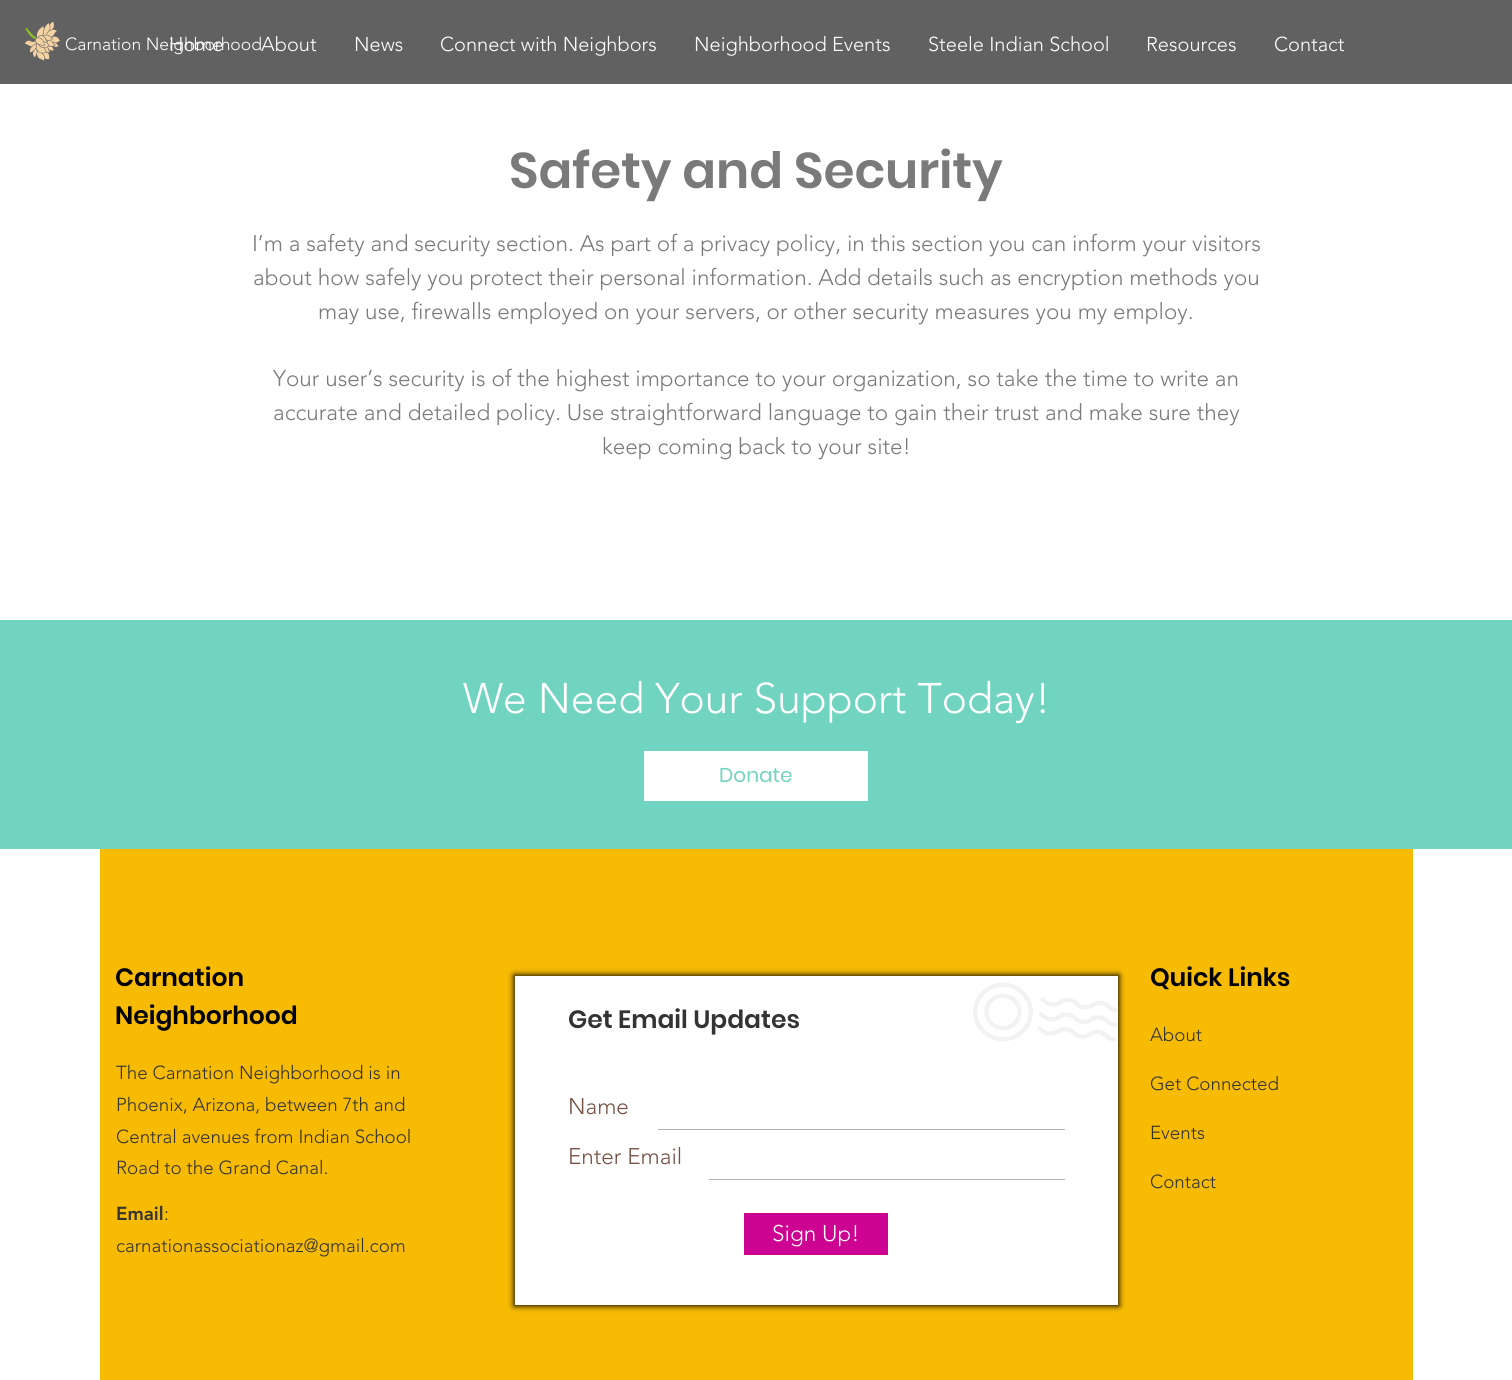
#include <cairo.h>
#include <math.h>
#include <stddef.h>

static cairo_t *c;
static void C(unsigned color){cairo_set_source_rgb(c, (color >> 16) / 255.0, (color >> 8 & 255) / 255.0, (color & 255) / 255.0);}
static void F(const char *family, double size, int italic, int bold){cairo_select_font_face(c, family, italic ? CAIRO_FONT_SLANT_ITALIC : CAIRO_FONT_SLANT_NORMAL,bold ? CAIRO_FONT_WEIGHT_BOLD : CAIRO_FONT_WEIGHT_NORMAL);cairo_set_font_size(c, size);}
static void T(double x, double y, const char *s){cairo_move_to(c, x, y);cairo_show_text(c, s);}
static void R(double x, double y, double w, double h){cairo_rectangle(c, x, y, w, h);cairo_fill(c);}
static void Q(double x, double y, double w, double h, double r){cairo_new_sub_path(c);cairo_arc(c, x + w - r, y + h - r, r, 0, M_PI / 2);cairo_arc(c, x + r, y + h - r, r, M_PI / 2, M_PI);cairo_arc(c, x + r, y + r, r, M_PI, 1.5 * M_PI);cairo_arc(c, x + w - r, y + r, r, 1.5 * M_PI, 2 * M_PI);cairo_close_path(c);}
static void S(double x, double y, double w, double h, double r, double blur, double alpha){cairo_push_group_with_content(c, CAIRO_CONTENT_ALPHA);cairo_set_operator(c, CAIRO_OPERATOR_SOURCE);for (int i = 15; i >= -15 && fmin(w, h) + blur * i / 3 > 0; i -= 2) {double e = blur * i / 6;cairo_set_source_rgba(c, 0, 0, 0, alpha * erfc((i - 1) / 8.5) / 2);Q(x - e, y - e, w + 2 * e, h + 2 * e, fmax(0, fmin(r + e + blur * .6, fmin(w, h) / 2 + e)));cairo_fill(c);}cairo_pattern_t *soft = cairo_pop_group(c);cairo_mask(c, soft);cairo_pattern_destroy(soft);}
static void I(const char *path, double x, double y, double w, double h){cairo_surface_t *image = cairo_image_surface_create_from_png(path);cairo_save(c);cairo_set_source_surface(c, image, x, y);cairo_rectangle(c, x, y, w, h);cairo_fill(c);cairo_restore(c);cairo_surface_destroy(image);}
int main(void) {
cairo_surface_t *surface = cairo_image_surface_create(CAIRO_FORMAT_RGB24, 1512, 1380);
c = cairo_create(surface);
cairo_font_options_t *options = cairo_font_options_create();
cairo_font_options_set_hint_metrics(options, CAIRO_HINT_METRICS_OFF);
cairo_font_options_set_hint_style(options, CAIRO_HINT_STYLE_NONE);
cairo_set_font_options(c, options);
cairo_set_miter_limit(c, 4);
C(0xffffff);
cairo_paint(c);
C(0x616161);
R(0,0,1512,84);
I("1.png",25,21,35,40);
F("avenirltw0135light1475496 Light",20,0,0);
C(0xffffff);
T(169,51,"Home");
F("avenirltw0135light1475496 Light",17.5,0,0);
T(65,50,"Carnation Neighborhood");
F("avenirltw0135light1475496 Light",20,0,0);
T(261,51,"About");
T(354,51,"News");
T(440,51,"Connect with Neighbors");
T(694,51,"Neighborhood Events");
T(928,51,"Steele Indian School");
T(1146,51,"Resources");
T(1274,51,"Contact");
F("Poppins SemiBold",50,0,0);
C(0x7a7a7a);
T(509,188,"Safety and Security");
F("avenirltw0135light1475496 Light",22.5,0,0);
T(252,251,"I’m a safety and security section. As part of a privacy policy, in this section you can inform your visitors");
T(253,285,"about how safely you protect their personal information. Add details such as encryption methods you");
T(318,319,"may use, firewalls employed on your servers, or other security measures you my employ.");
T(273,386,"Your user’s security is of the highest importance to your organization, so take the time to write an");
T(273,420,"accurate and detailed policy. Use straightforward language to gain their trust and make sure they");
T(602,454,"keep coming back to your site!");
C(0x71d4c0);
R(0,620,1512,229);
F("avenirltw0135light1475496 Light",42.5,0,0);
C(0xffffff);
T(463,713,"We Need Your Support Today!");
R(644,751,224,50);
F("Poppins",20,0,0);
C(0x71d4c0);
T(719,782,"Donate");
C(0xf7bb04);
R(100,849,1313,531);
F("Poppins SemiBold",25,0,0);
C(0x000000);
T(115,986,"Carnation");
T(115,1024,"Neighborhood");
F("avenirltw0135light1475496 Light",18.75,0,0);
C(0x333333);
T(116,1079,"The Carnation Neighborhood is in");
T(116,1111,"Phoenix, Arizona, between 7th and");
T(116,1143,"Central avenues from Indian School");
T(116,1174,"Road to the Grand Canal.");
F("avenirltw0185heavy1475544 Black",18.75,0,0);
T(116,1220,"Email");
F("avenirltw0135light1475496 Light",18.75,0,0);
T(164,1220,":");
T(116,1252,"carnationassociationaz@gmail.com");
C(0x000000);
S(514,975,605,331,0,3,1);
C(0xffffff);
R(515,976,603,329);
F("Poppins SemiBold",25,0,0);
C(0x333333);
T(568,1028,"Get Email Updates");
I("2.png",973,982,146,60);
F("avenirltw0135light1475496 Light",22.5,0,0);
C(0x755144);
T(568,1114,"Name");
C(0xb3b3b3);
R(658,1129,407,1);
C(0x755144);
T(568,1164,"Enter Email");
C(0xb3b3b3);
R(709,1179,356,1);
C(0xcd0392);
R(744,1213,144,42);
C(0xffffff);
T(772,1241,"Sign Up!");
F("Poppins SemiBold",25,0,0);
C(0x000000);
T(1150,986,"Quick Links");
F("avenirltw0135light1475496 Light",18.75,0,0);
C(0x333333);
T(1150,1041,"About");
T(1150,1090,"Get Connected");
T(1150,1139,"Events");
T(1150,1188,"Contact");
cairo_surface_write_to_png(surface, "o.png");
cairo_font_options_destroy(options);
cairo_destroy(c);
cairo_surface_destroy(surface);
return 0;
}
